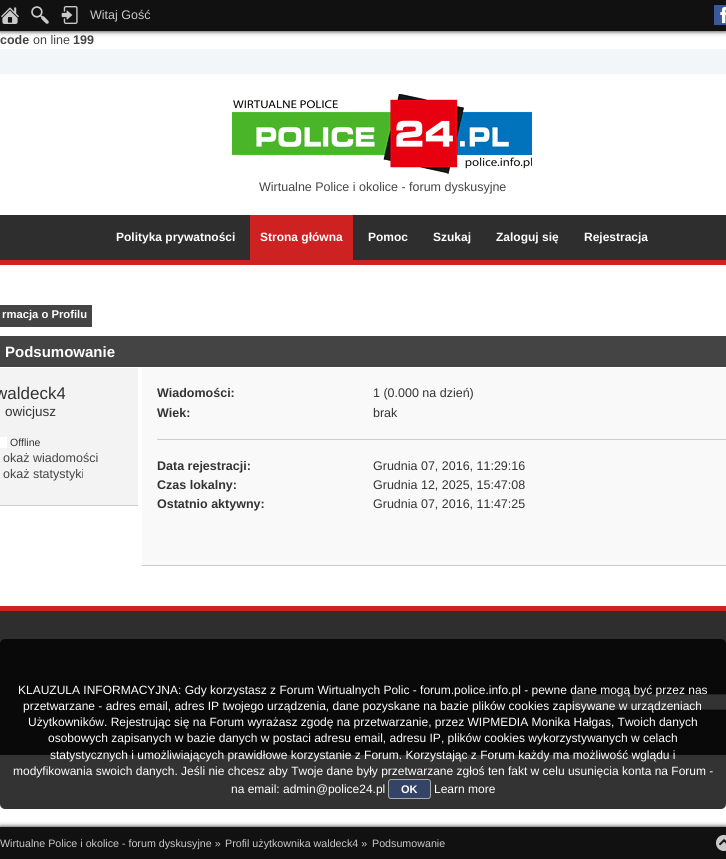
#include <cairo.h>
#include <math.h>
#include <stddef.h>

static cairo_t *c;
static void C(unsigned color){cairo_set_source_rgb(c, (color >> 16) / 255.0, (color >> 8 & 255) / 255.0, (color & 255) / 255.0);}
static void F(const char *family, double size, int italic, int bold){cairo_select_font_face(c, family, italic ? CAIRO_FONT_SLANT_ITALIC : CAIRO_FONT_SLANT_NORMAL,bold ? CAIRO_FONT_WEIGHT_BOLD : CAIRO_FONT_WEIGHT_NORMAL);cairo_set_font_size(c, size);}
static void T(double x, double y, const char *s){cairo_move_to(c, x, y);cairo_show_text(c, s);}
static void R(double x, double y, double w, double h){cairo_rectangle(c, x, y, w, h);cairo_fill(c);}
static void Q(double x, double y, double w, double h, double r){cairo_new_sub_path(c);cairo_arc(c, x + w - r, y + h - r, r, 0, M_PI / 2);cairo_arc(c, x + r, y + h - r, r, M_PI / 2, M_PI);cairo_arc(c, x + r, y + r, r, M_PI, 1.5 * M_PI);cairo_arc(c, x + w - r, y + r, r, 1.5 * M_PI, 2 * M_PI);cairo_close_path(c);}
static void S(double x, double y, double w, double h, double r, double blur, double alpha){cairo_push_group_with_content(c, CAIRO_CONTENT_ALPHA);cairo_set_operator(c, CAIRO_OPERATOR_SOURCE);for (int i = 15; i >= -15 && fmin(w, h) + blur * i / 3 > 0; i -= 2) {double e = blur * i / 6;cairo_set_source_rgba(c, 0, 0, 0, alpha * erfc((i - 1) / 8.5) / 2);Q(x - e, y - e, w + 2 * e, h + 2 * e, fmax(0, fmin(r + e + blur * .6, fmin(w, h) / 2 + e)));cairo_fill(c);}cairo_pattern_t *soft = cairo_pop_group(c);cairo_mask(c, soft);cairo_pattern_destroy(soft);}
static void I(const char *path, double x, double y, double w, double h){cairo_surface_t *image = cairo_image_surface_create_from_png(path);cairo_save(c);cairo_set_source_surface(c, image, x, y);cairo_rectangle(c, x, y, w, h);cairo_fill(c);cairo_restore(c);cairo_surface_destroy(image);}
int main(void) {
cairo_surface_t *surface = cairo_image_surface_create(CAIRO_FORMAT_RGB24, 726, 859);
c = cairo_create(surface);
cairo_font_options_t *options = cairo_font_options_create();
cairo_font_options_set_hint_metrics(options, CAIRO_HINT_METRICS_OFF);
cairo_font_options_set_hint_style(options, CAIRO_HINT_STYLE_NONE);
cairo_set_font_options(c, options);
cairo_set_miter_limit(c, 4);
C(0xffffff);
cairo_paint(c);
C(0x000000);
S(0,0,726,31,0,2.5,.9);
C(0x111111);
R(0,0,726,31);
I("1.png",1,7,18,17);
I("2.png",31,6,18,18);
I("3.png",61,6,17,18);
F("Liberation Sans",12.5,0,0);
C(0xcacaca);
T(90,19,"Witaj Gość");
C(0x3b5998);
R(714,5,12,20);
I("4.png",720,6,6,18);
F("Liberation Sans",12.5,0,1);
C(0x444444);
T(0,44,"code");
F("Liberation Sans",12.5,0,0);
T(33,44,"on line");
F("Liberation Sans",12.5,0,1);
T(73,44,"199");
C(0xf2f6f8);
R(0,49,726,25);
I("5.png",232,94,300,80);
F("Liberation Sans",12.5,0,0);
C(0x444444);
T(259,191,"Wirtualne Police i okolice - forum dyskusyjne");
C(0x2e2e2e);
R(0,215,726,45);
C(0xcd2122);
R(0,260,726,5);
F("Liberation Sans",12,0,1);
C(0xffffff);
T(116,241,"Polityka prywatności");
C(0xcd2122);
R(250,215,103,45);
C(0xffffff);
T(260,241,"Strona główna");
T(368,241,"Pomoc");
T(433,241,"Szukaj");
T(496,241,"Zaloguj się");
T(584,241,"Rejestracja");
C(0x444444);
R(0,305,92,22);
F("Liberation Sans",11.25,0,1);
C(0xffffff);
T(2,318,"rmacja o Profilu");
C(0x444444);
R(0,336,726,31);
F("Liberation Sans",15,0,1);
C(0xffffff);
T(5,357,"Podsumowanie");
C(0xf3f3f3);
R(0,368,138,137);
F("Liberation Sans",17,0,0);
C(0x333333);
T(-5,399,"waldeck4");
F("Liberation Sans",13.5,0,0);
T(5,416,"owicjusz");
C(0xffffff);
R(0,437,7,11);
F("Liberation Sans",10.5,0,0);
C(0x333333);
T(10,446,"Offline");
F("Liberation Sans",12.5,0,0);
C(0x444444);
T(3,462,"okaż wiadomości");
T(3,478,"okaż statystyki");
C(0xcccccc);
R(0,505,138,1);
C(0xf9f9f9);
R(142,368,584,197);
C(0xcccccc);
R(157,439,569,1);
F("Liberation Sans",12.5,0,1);
C(0x333333);
T(157,397,"Wiadomości:");
F("Liberation Sans",12.5,0,0);
T(373,397,"1 (0.000 na dzień)");
F("Liberation Sans",12.5,0,1);
T(157,417,"Wiek:");
F("Liberation Sans",12.5,0,0);
T(373,417,"brak");
F("Liberation Sans",12.5,0,1);
T(157,470,"Data rejestracji:");
F("Liberation Sans",12.5,0,0);
T(373,470,"Grudnia 07, 2016, 11:29:16");
F("Liberation Sans",12.5,0,1);
T(157,489,"Czas lokalny:");
F("Liberation Sans",12.5,0,0);
T(373,489,"Grudnia 12, 2025, 15:47:08");
F("Liberation Sans",12.5,0,1);
T(157,508,"Ostatnio aktywny:");
F("Liberation Sans",12.5,0,0);
T(373,508,"Grudnia 07, 2016, 11:47:25");
C(0xcccccc);
R(142,565,584,1);
C(0x2e2e2e);
R(0,611,726,144);
C(0xcd2122);
R(0,606,726,5);
C(0xffffff);
cairo_rectangle(c,572.5,694.5,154,15);
cairo_fill_preserve(c);
C(0xaaaaaa);
cairo_set_line_width(c,1);
cairo_stroke(c);
cairo_set_source_rgba(c,0,0,0,0.8);
Q(0,639,726,170,5);
cairo_fill(c);
F("Liberation Sans",12,0,0);
C(0xffffff);
T(18,694,"KLAUZULA INFORMACYJNA: Gdy korzystasz z Forum Wirtualnych Polic - forum.police.info.pl - pewne dane mogą być przez nas");
T(23,710,"przetwarzane - adres email, adres IP twojego urządzenia, dane pozyskane na bazie plików cookies zapisywane w urządzeniach");
T(28,726,"Użytkowników. Rejestrując się na Forum wyrażasz zgodę na przetwarzanie, przez WIPMEDIA Monika Hałgas, Twoich danych");
T(48,742,"osobowych zapisanych w bazie danych w postaci adresu email, adresu IP, plików cookies wykorzystywanych w celach");
T(50,759,"statystycznych i umożliwiających prawidłowe korzystanie z Forum. Korzystając z Forum każdy ma możliwość wglądu i");
T(13,775,"modyfikowania swoich danych. Jeśli nie chcesz aby Twoje dane były przetwarzane zgłoś ten fakt w celu usunięcia konta na Forum -");
T(231,793,"na email: admin@police24.pl");
C(0x334466);
Q(388.5,779.5,42,19,2.5);
cairo_fill_preserve(c);
C(0xaaaaaa);
cairo_stroke(c);
F("Liberation Sans",11,0,1);
C(0xffffff);
T(401,793,"OK");
F("Liberation Sans",12,0,0);
T(434,793,"Learn more");
C(0x000000);
S(0,827,726,32,0,2.5,.9);
C(0x111111);
R(0,827,726,32);
F("Liberation Sans",10.7,0,0);
C(0xcacaca);
T(0,847,"Wirtualne Police i okolice - forum dyskusyjne »");
T(225,847,"Profil użytkownika waldeck4 »");
T(372,847,"Podsumowanie");
I("6.png",716,834,10,17);
cairo_surface_write_to_png(surface, "o.png");
cairo_font_options_destroy(options);
cairo_destroy(c);
cairo_surface_destroy(surface);
return 0;
}
